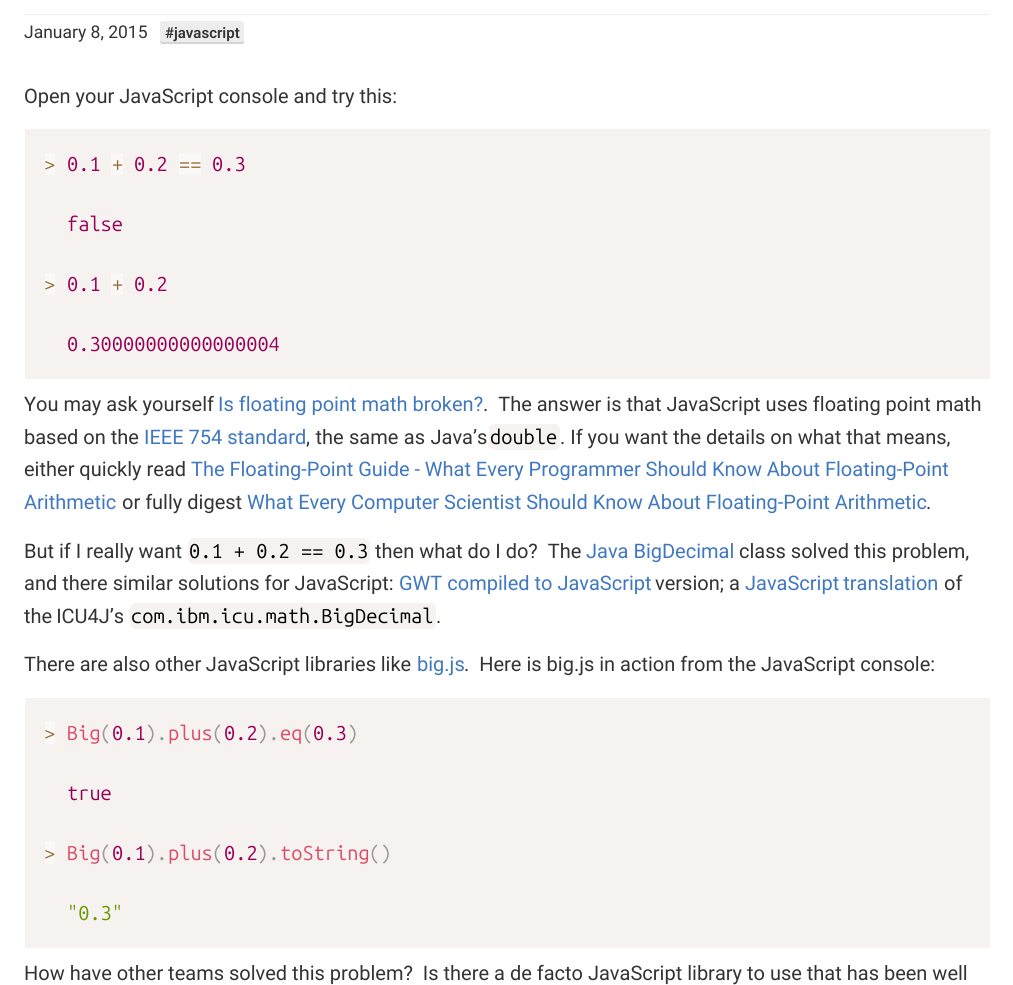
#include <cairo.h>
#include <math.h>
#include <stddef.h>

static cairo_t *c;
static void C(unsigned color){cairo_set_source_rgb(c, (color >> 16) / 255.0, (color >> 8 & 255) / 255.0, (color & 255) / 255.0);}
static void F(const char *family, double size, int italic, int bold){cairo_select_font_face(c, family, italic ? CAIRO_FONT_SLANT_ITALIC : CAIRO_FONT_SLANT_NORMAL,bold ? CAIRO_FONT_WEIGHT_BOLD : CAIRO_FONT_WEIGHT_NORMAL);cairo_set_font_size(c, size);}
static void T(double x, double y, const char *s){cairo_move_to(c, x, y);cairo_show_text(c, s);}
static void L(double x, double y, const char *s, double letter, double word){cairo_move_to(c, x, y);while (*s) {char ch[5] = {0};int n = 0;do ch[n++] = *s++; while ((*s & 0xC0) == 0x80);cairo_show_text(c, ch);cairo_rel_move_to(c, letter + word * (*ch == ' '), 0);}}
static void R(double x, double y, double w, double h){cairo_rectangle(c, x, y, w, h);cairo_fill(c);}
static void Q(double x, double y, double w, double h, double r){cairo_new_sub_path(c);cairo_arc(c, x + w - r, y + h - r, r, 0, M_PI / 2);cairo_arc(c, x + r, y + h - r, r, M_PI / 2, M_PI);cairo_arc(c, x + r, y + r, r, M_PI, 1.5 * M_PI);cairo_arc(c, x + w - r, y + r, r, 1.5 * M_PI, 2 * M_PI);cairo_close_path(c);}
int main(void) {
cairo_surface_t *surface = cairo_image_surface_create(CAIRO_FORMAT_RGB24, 1013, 985);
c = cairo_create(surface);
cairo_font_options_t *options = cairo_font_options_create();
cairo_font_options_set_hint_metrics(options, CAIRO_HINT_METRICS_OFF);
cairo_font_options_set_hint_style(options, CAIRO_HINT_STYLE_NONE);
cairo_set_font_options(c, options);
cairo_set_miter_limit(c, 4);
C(0xffffff);
cairo_paint(c);
C(0xededed);
R(25,14,965,1);
F("Roboto",17.5,0,0);
C(0x333333);
T(24,38,"January 8, 2015");
C(0xededed);
cairo_new_path(c);
cairo_move_to(c,162.5,21);
cairo_line_to(c,174,21);
cairo_line_to(c,174,44);
cairo_line_to(c,162.5,44);
cairo_curve_to(c,161,44,160,43,160,41.5);
cairo_line_to(c,160,23.5);
cairo_curve_to(c,160,22,161,21,162.5,21);
cairo_close_path(c);
cairo_fill(c);
cairo_set_source_rgba(c,0.106,0.122,0.137,0.12);
cairo_new_path(c);
cairo_move_to(c,160,40);
cairo_curve_to(c,160,45,162,44,166.5,44);
cairo_line_to(c,174,44);
cairo_line_to(c,174,42);
cairo_line_to(c,162,42);
cairo_curve_to(c,161,42,160,41,160,40);
cairo_close_path(c);
cairo_fill(c);
C(0xededed);
cairo_new_path(c);
cairo_move_to(c,174,21);
cairo_line_to(c,241.5,21);
cairo_curve_to(c,243,21,244,22,244,23.5);
cairo_line_to(c,244,41.5);
cairo_curve_to(c,244,43,243,44,241.5,44);
cairo_line_to(c,174,44);
cairo_close_path(c);
cairo_fill(c);
cairo_set_source_rgba(c,0.106,0.122,0.137,0.12);
cairo_new_path(c);
cairo_move_to(c,174,42);
cairo_line_to(c,174,44);
cairo_line_to(c,242,44);
cairo_curve_to(c,243,44,244,43,244,42);
cairo_line_to(c,244,40);
cairo_curve_to(c,244,41,243,42,241,42);
cairo_close_path(c);
cairo_fill(c);
F("Roboto SemiBold",15,0,0);
C(0x333333);
T(165,38,"#javascript");
F("Roboto",20,0,0);
T(24,103,"Open your JavaScript console and try this:");
C(0xf5f2f0);
R(25,129,965,250);
C(0xfaf9f8);
R(45,153,10,22);
F("Ubuntu Mono",20,0,0);
C(0x9a6e3a);
T(44,171,">");
C(0x990055);
T(67,171,"0.1");
C(0xfaf9f8);
R(111,153,12,22);
C(0x9a6e3a);
T(112,171,"+");
C(0x990055);
T(134,171,"0.2");
C(0xfaf9f8);
R(179,153,22,22);
C(0x9a6e3a);
T(179,171,"==");
C(0x990055);
T(212,171,"0.3");
T(67,231,"false");
C(0xfaf9f8);
R(45,273,10,22);
C(0x9a6e3a);
T(44,291,">");
C(0x990055);
T(67,291,"0.1");
C(0xfaf9f8);
R(111,273,12,22);
C(0x9a6e3a);
T(112,291,"+");
C(0x990055);
T(134,291,"0.2");
T(67,351,"0.30000000000000004");
F("Roboto",20,0,0);
C(0x333333);
T(24,411,"You may ask yourself");
C(0x4078c0);
T(218,411,"Is floating point math broken?");
C(0x333333);
T(483,411,".  The answer is that JavaScript uses floating point math");
T(24,444,"based on the");
C(0x4078c0);
T(144,444,"IEEE 754 standard");
C(0x333333);
L(306,444,", the same as Java’s",0,.5);
C(0xf5f2f0);
Q(489,424,71,26,6);
cairo_fill(c);
F("Ubuntu Mono",20,0,0);
C(0x000000);
T(490,444,"double");
F("Roboto",20,0,0);
C(0x333333);
T(560,444,". If you want the details on what that means,");
T(24,476,"either quickly read");
C(0x4078c0);
L(191,476,"The Floating-Point Guide - What Every Programmer Should Know About Floating-Point",0,-.1);
T(24,509,"Arithmetic");
C(0x333333);
T(122,509,"or fully digest");
C(0x4078c0);
T(247,509,"What Every Computer Scientist Should Know About Floating-Point Arithmetic");
C(0x333333);
T(926,509,".");
T(24,558,"But if I really want");
C(0xf5f2f0);
Q(188,538,182,26,6);
cairo_fill(c);
F("Ubuntu Mono",20,0,0);
C(0x000000);
T(189,558,"0.1 + 0.2 == 0.3");
F("Roboto",20,0,0);
C(0x333333);
T(375,558,"then what do I do?  The");
C(0x4078c0);
T(586,558,"Java BigDecimal");
C(0x333333);
T(739,558,"class solved this problem,");
T(24,590,"and there similar solutions for JavaScript:");
C(0x4078c0);
T(399,590,"GWT compiled to JavaScript");
C(0x333333);
T(655,590,"version; a");
C(0x4078c0);
L(745,590,"JavaScript translation",0,-1);
C(0x333333);
T(944,590,"of");
L(24,623,"the ICU4J’s",0,-1);
C(0xf5f2f0);
Q(130,603,306,26,6);
cairo_fill(c);
F("Ubuntu Mono",20,0,0);
C(0x000000);
T(131,623,"com.ibm.icu.math.BigDecimal");
F("Roboto",20,0,0);
C(0x333333);
T(436,623,".");
L(24,671,"There are also other JavaScript libraries like",0,-.25);
C(0x4078c0);
T(417,671,"big.js");
C(0x333333);
T(464,671,".  Here is big.js in action from the JavaScript console:");
C(0xf5f2f0);
R(25,698,965,250);
C(0xfaf9f8);
R(45,721,10,23);
F("Ubuntu Mono",20,0,0);
C(0x9a6e3a);
T(44,740,">");
C(0xdd4a68);
T(67,740,"Big");
C(0x999999);
T(100,740,"(");
C(0x990055);
T(112,740,"0.1");
C(0x999999);
T(145,740,").");
C(0xdd4a68);
T(168,740,"plus");
C(0x999999);
T(212,740,"(");
C(0x990055);
T(224,740,"0.2");
C(0x999999);
T(257,740,").");
C(0xdd4a68);
T(280,740,"eq");
C(0x999999);
T(302,740,"(");
C(0x990055);
T(313,740,"0.3");
C(0x999999);
T(347,740,")");
C(0x990055);
T(67,800,"true");
C(0xfaf9f8);
R(45,841,10,23);
C(0x9a6e3a);
T(44,860,">");
C(0xdd4a68);
T(67,860,"Big");
C(0x999999);
T(100,860,"(");
C(0x990055);
T(112,860,"0.1");
C(0x999999);
T(145,860,").");
C(0xdd4a68);
T(168,860,"plus");
C(0x999999);
T(212,860,"(");
C(0x990055);
T(224,860,"0.2");
C(0x999999);
T(257,860,").");
C(0xdd4a68);
T(280,860,"toString");
C(0x999999);
T(369,860,"()");
C(0x669900);
T(67,920,"\"0.3\"");
F("Roboto",20,0,0);
C(0x333333);
T(24,980,"How have other teams solved this problem?  Is there a de facto JavaScript library to use that has been well");
cairo_surface_write_to_png(surface, "o.png");
cairo_font_options_destroy(options);
cairo_destroy(c);
cairo_surface_destroy(surface);
return 0;
}
